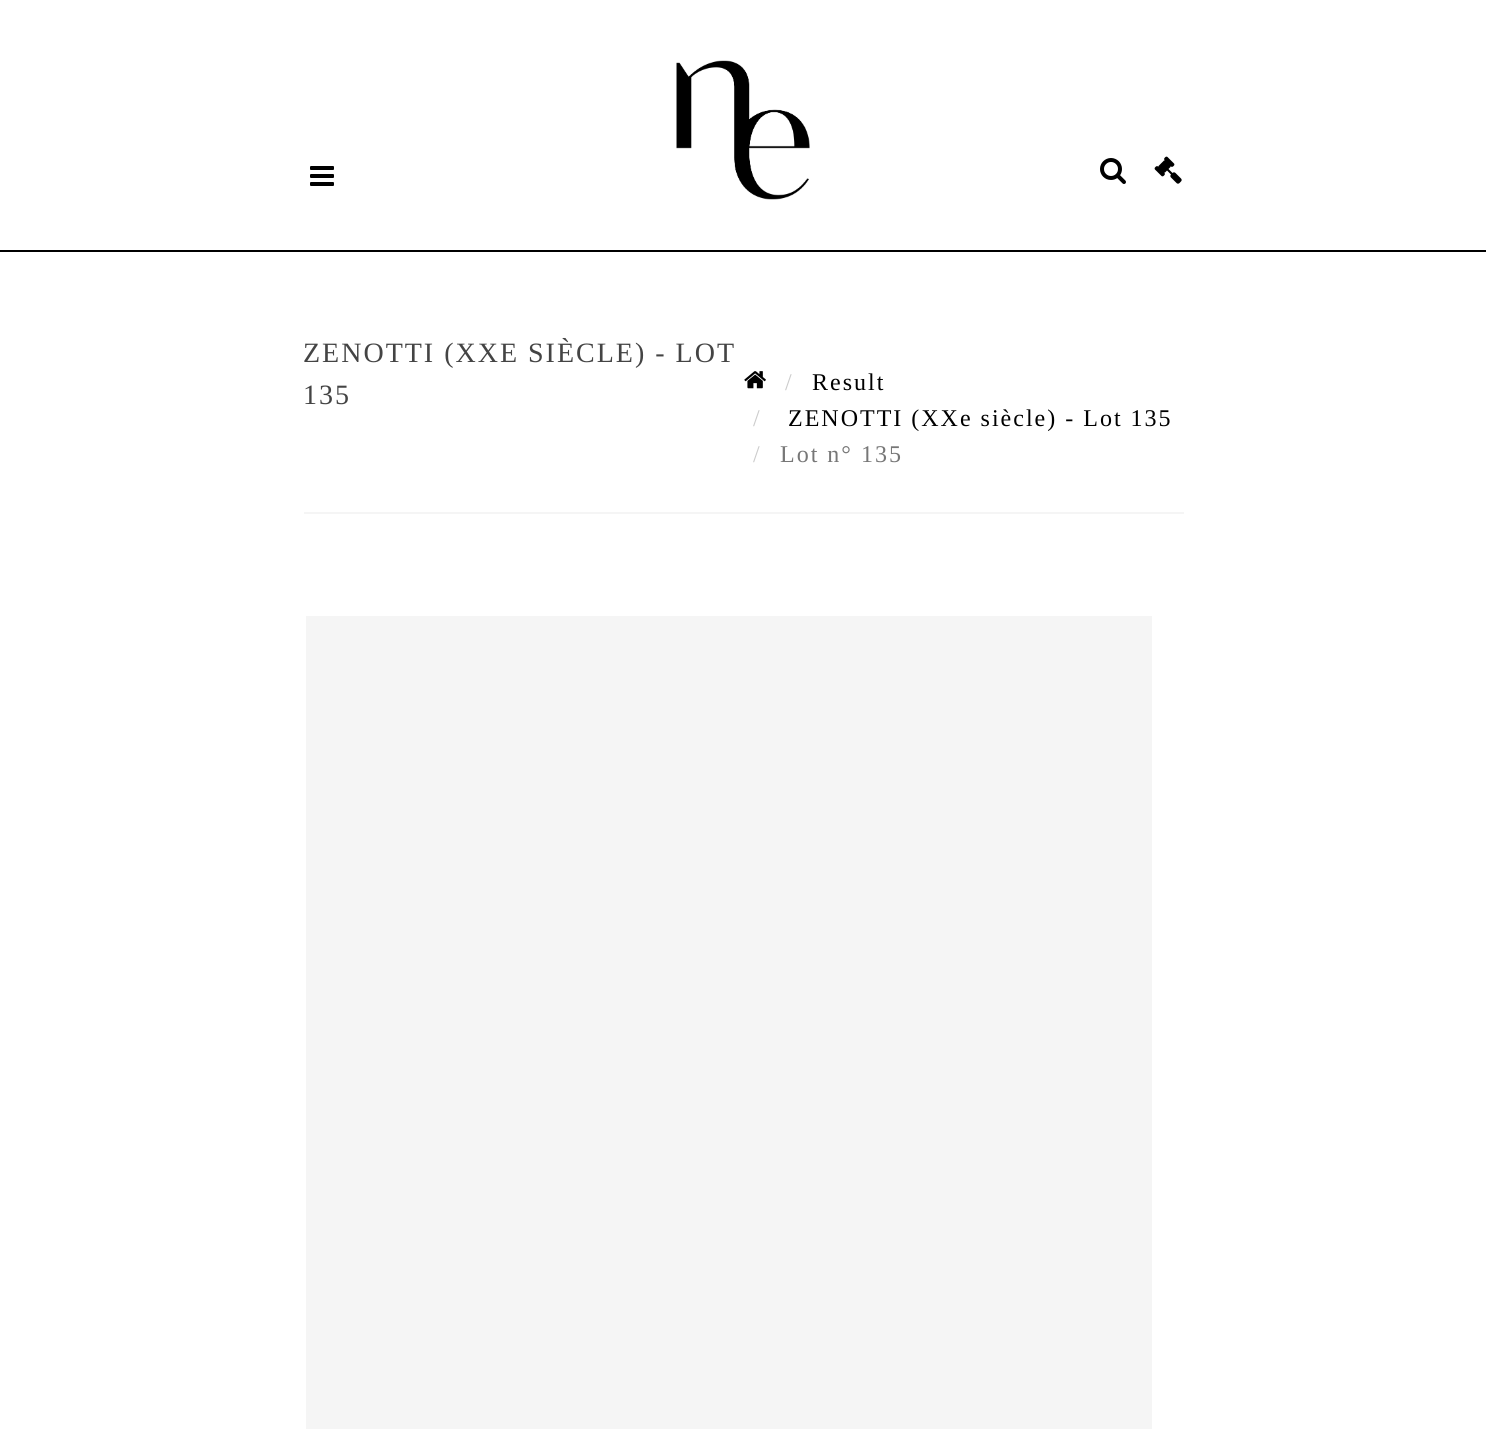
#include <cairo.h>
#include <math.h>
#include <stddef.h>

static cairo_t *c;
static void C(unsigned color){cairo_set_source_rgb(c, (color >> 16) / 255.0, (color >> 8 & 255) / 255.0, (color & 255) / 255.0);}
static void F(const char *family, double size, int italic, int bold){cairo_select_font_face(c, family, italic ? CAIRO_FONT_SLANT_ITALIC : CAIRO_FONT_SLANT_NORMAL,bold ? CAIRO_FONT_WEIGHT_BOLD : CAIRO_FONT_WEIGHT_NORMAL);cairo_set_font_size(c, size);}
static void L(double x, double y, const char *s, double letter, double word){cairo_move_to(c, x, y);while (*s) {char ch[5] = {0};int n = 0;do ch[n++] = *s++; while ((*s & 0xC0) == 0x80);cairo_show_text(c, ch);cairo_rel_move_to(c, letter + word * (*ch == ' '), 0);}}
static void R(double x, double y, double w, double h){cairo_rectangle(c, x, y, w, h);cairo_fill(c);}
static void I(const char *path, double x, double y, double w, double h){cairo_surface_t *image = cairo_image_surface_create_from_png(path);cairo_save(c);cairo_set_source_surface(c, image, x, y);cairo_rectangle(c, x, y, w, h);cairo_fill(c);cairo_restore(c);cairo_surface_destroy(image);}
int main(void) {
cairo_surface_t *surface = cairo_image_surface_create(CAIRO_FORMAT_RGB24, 1486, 1429);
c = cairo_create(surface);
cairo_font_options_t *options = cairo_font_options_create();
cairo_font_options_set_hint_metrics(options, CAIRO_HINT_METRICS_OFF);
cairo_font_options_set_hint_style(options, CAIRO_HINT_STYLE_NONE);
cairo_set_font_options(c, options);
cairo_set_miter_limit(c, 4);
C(0xffffff);
cairo_paint(c);
C(0x000000);
R(0,250,1486,2);
I("1.png",310,166,24,20);
I("2.png",676,60,134,140);
I("3.png",1100,158,26,26);
I("4.png",1154,156,28,28);
C(0xf5f5f5);
R(304,512,880,2);
F("Liberation Serif",28,0,0);
C(0x444444);
L(303,362,"ZENOTTI (XXE SIÈCLE) - LOT",2,0);
L(303,404,"135",2,0);
I("5.png",744,371,22,18);
F("Liberation Serif",24,0,0);
C(0xcccccc);
L(785,390,"/",2,0);
C(0x000000);
L(812,390,"Result",2,0);
C(0xcccccc);
L(753,426,"/",2,0);
C(0x000000);
L(788,426,"ZENOTTI (XXe siècle) - Lot 135",2,0);
C(0xcccccc);
L(753,462,"/",2,0);
C(0x777777);
L(780,462,"Lot n° 135",2,0);
C(0xf5f5f5);
R(306,616,846,813);
cairo_surface_write_to_png(surface, "o.png");
cairo_font_options_destroy(options);
cairo_destroy(c);
cairo_surface_destroy(surface);
return 0;
}
